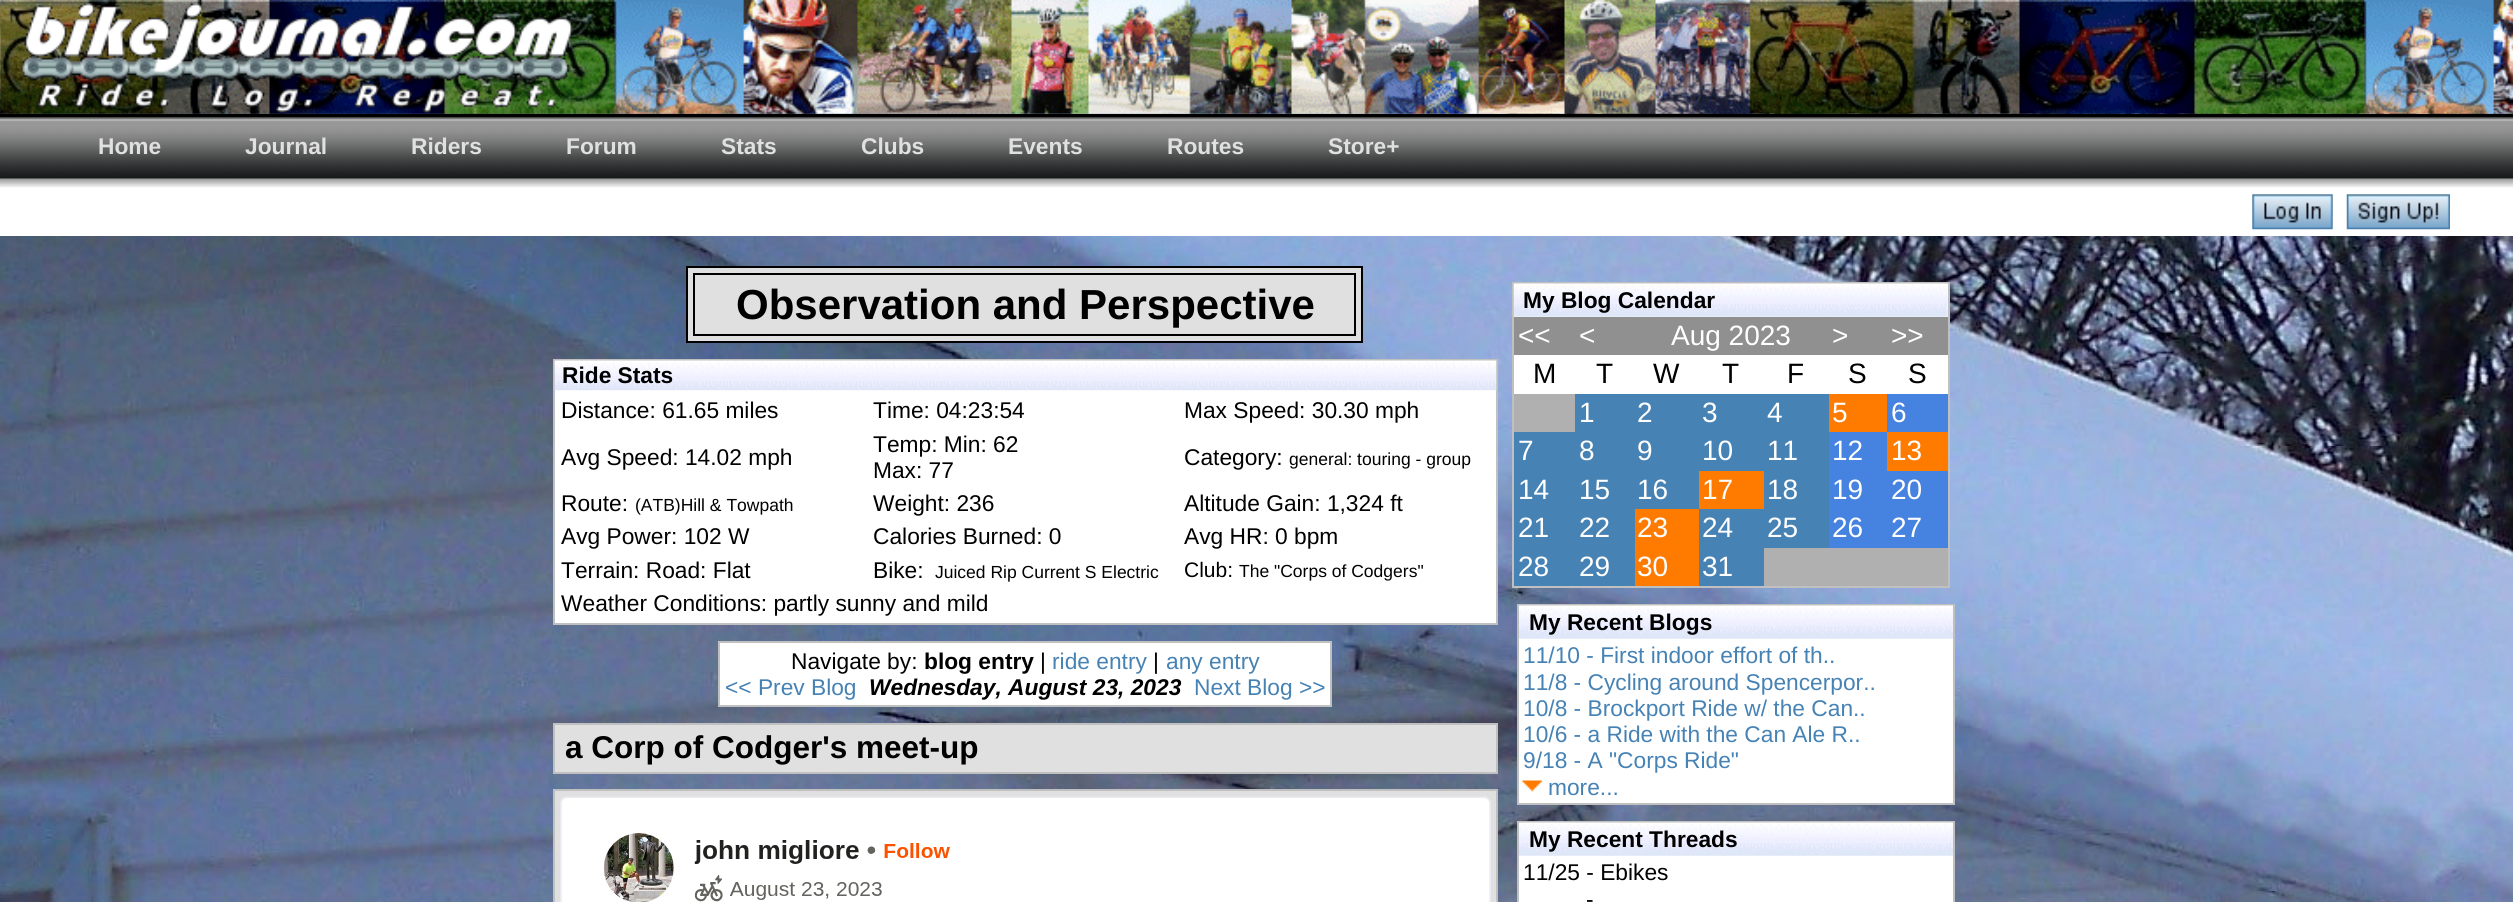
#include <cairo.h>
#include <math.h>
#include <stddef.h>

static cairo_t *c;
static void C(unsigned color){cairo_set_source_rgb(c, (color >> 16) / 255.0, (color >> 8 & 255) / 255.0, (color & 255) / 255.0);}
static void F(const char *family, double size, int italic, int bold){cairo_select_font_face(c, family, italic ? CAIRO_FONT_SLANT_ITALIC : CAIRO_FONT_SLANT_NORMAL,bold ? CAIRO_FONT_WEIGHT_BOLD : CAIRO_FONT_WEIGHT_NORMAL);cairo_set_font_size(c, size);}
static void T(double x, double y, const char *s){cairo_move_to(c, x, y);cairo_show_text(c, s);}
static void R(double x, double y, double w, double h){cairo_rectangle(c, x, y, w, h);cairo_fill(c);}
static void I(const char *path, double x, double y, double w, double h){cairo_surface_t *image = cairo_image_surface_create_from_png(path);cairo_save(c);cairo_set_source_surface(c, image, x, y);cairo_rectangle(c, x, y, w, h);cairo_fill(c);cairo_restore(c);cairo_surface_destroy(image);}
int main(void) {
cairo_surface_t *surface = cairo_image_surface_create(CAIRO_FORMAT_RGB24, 2513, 902);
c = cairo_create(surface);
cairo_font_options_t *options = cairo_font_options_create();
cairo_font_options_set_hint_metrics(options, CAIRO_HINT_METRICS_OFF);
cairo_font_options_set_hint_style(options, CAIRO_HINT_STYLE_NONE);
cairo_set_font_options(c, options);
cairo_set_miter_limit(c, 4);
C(0xffffff);
cairo_paint(c);
I("1.png",0,113,2513,789);
I("2.png",0,0,2513,114);
I("3.png",22,3,551,110);
C(0x000000);
R(0,114,2513,4);
C(0xffffff);
R(0,187,2513,49);
I("4.png",0,117,2513,71);
F("Liberation Sans",22.75,0,1);
C(0xe0e0e0);
T(98,154,"Home");
T(245,154,"Journal");
T(411,154,"Riders");
T(566,154,"Forum");
T(721,154,"Stats");
T(861,154,"Clubs");
T(1008,154,"Events");
T(1167,154,"Routes");
T(1328,154,"Store+");
I("5.png",2252,194,81,36);
I("6.png",2346,194,104,36);
cairo_rectangle(c,687,267,675,75);
cairo_fill_preserve(c);
C(0x000000);
cairo_stroke(c);
cairo_rectangle(c,694,274,661,61);
cairo_stroke(c);
F("Liberation Sans",42,0,1);
T(736,319,"Observation and Perspective");
C(0xffffff);
R(555,390,941,233);
cairo_rectangle(c,554,360,943,264);
C(0xc0c0c0);
cairo_stroke(c);
I("7.png",554,360,943,31);
F("Liberation Sans",22.75,0,1);
C(0x000000);
T(562,383,"Ride Stats");
F("Liberation Sans",22.75,0,0);
T(561,418,"Distance: 61.65 miles");
T(873,418,"Time: 04:23:54");
T(1184,418,"Max Speed: 30.30 mph");
T(561,465,"Avg Speed: 14.02 mph");
T(873,452,"Temp: Min: 62");
T(873,478,"Max: 77");
T(1184,465,"Category:");
F("Liberation Sans",17.5,0,0);
T(1289,465,"general: touring - group");
F("Liberation Sans",22.75,0,0);
T(561,511,"Route:");
F("Liberation Sans",17.5,0,0);
T(635,511,"(ATB)Hill & Towpath");
F("Liberation Sans",22.75,0,0);
T(873,511,"Weight: 236");
T(1184,511,"Altitude Gain: 1,324 ft");
T(561,544,"Avg Power: 102 W");
T(873,544,"Calories Burned: 0");
T(1184,544,"Avg HR: 0 bpm");
T(561,578,"Terrain: Road: Flat");
T(873,578,"Bike:");
F("Liberation Sans",17.5,0,0);
T(935,578,"Juiced Rip Current S Electric");
F("Liberation Sans",21,0,0);
T(1184,577,"Club:");
F("Liberation Sans",17.5,0,0);
T(1239,577,"The \"Corps of Codgers\"");
F("Liberation Sans",22.75,0,0);
T(561,611,"Weather Conditions: partly sunny and mild");
C(0xffffff);
cairo_rectangle(c,719,642,612,64);
cairo_fill_preserve(c);
C(0xc0c0c0);
cairo_stroke(c);
C(0x000000);
T(791,669,"Navigate by:");
F("Liberation Sans",22.75,0,1);
T(924,669,"blog entry");
F("Liberation Sans",22.75,0,0);
T(1040,669,"|");
C(0x4682b4);
T(1052,669,"ride entry");
C(0x000000);
T(1153,669,"|");
C(0x4682b4);
T(1166,669,"any entry");
T(725,695,"<< Prev Blog");
F("Liberation Sans",22.75,1,1);
C(0x000000);
T(869,695,"Wednesday, August 23, 2023");
F("Liberation Sans",22.75,0,0);
C(0x4682b4);
T(1194,695,"Next Blog >>");
cairo_rectangle(c,554,724,943,49);
C(0xc0c0c0);
cairo_stroke(c);
C(0xe0e0e0);
R(555,725,941,47);
F("Liberation Sans",31.5,0,1);
C(0x000000);
T(565,758,"a Corp of Codger's meet-up");
cairo_rectangle(c,554,790,943,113);
C(0xc0c0c0);
cairo_stroke(c);
C(0xe0e0e0);
R(555,791,941,111);
I("8.png",560,796,931,106);
C(0xffffff);
R(1514,284,434,110);
cairo_rectangle(c,1513,283,436,304);
C(0xc0c0c0);
cairo_stroke(c);
I("9.png",1513,283,435,34);
F("Liberation Sans",22.75,0,1);
C(0x000000);
T(1523,308,"My Blog Calendar");
C(0x909090);
R(1514,317,434,38);
F("Liberation Sans",28,0,0);
C(0xffffff);
T(1518,345,"<<");
T(1579,345,"<");
T(1671,345,"Aug 2023");
T(1832,345,">");
T(1891,345,">>");
C(0x000000);
T(1533,383,"M");
T(1596,383,"T");
T(1653,383,"W");
T(1722,383,"T");
T(1787,383,"F");
T(1848,383,"S");
T(1908,383,"S");
C(0xb0b0b0);
R(1514,394,61,38);
C(0x4682b4);
R(1575,394,254,38);
C(0xffffff);
T(1579,422,"1");
T(1637,422,"2");
T(1702,422,"3");
T(1767,422,"4");
C(0xff7b00);
R(1829,394,58,38);
C(0xffffff);
T(1832,422,"5");
C(0x4682e0);
R(1887,394,61,38);
C(0xffffff);
T(1891,422,"6");
C(0x4682b4);
R(1514,432,315,39);
C(0xffffff);
T(1518,460,"7");
T(1579,460,"8");
T(1637,460,"9");
T(1702,460,"10");
T(1767,460,"11");
C(0x4682e0);
R(1829,432,58,116);
C(0xffffff);
T(1832,460,"12");
C(0xff7b00);
R(1887,432,61,39);
C(0xffffff);
T(1891,460,"13");
C(0x4682b4);
R(1514,471,185,38);
C(0xffffff);
T(1518,499,"14");
T(1579,499,"15");
T(1637,499,"16");
C(0xff7b00);
R(1699,471,65,38);
C(0xffffff);
T(1702,499,"17");
C(0x4682b4);
R(1764,471,65,38);
C(0xffffff);
T(1767,499,"18");
T(1832,499,"19");
C(0x4682e0);
R(1887,471,61,77);
C(0xffffff);
T(1891,499,"20");
C(0x4682b4);
R(1514,509,121,39);
C(0xffffff);
T(1518,537,"21");
T(1579,537,"22");
C(0xff7b00);
R(1635,509,64,77);
C(0xffffff);
T(1637,537,"23");
C(0x4682b4);
R(1699,509,130,39);
C(0xffffff);
T(1702,537,"24");
T(1767,537,"25");
T(1832,537,"26");
T(1891,537,"27");
C(0x4682b4);
R(1514,548,121,38);
C(0xffffff);
T(1518,576,"28");
T(1579,576,"29");
T(1637,576,"30");
C(0x4682b4);
R(1699,548,65,38);
C(0xffffff);
T(1702,576,"31");
C(0xb0b0b0);
R(1764,548,184,38);
C(0xffffff);
R(1519,638,434,165);
cairo_rectangle(c,1518,605,436,199);
C(0xc0c0c0);
cairo_stroke(c);
I("10.png",1519,605,434,34);
F("Liberation Sans",22.75,0,1);
C(0x000000);
T(1529,630,"My Recent Blogs");
F("Liberation Sans",22.75,0,0);
C(0x4682b4);
T(1523,663,"11/10 - First indoor effort of th..");
T(1523,690,"11/8 - Cycling around Spencerpor..");
T(1523,716,"10/8 - Brockport Ride w/ the Can..");
T(1523,742,"10/6 - a Ride with the Can Ale R..");
T(1523,768,"9/18 - A \"Corps Ride\"");
I("11.png",1522,780,20,12);
T(1548,795,"more...");
C(0xffffff);
R(1519,855,434,47);
cairo_rectangle(c,1518,822,436,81);
C(0xc0c0c0);
cairo_stroke(c);
I("10.png",1519,822,434,34);
F("Liberation Sans",22.75,0,1);
C(0x000000);
T(1529,847,"My Recent Threads");
F("Liberation Sans",22.75,0,0);
T(1523,880,"11/25 - Ebikes");
T(1586,907,"-");
cairo_surface_write_to_png(surface, "o.png");
cairo_font_options_destroy(options);
cairo_destroy(c);
cairo_surface_destroy(surface);
return 0;
}
